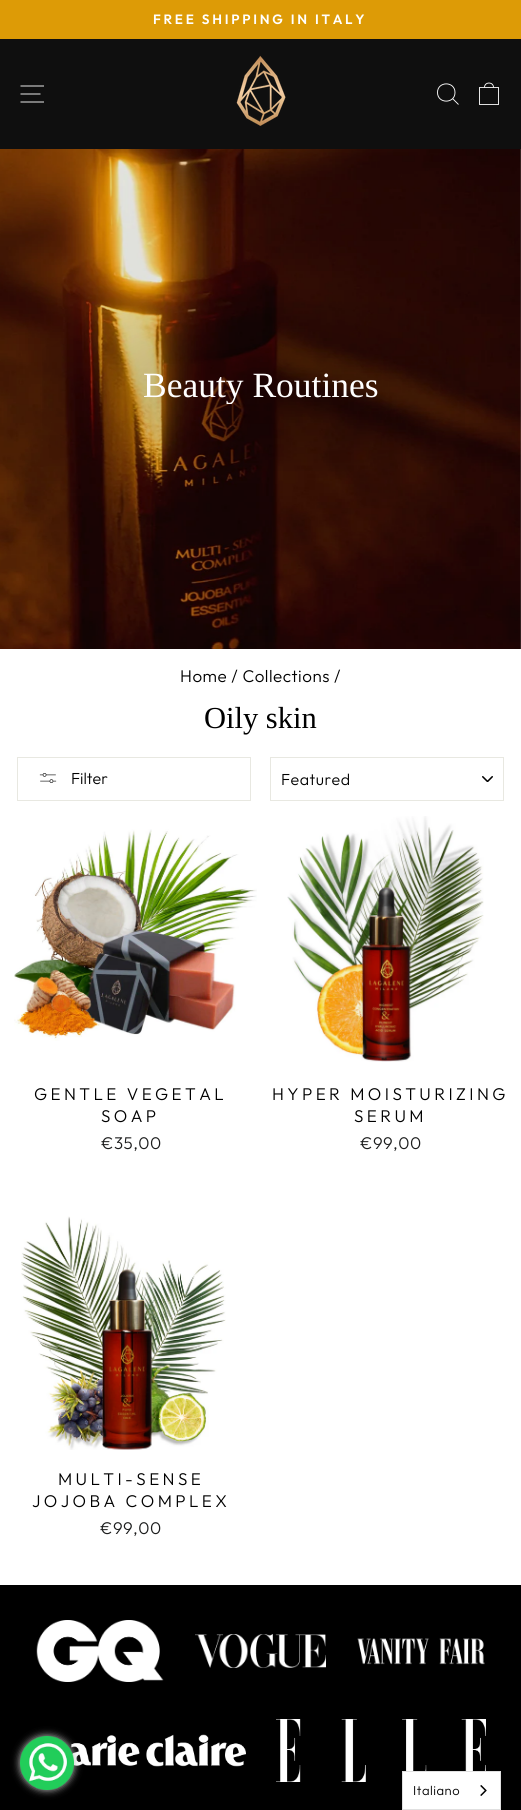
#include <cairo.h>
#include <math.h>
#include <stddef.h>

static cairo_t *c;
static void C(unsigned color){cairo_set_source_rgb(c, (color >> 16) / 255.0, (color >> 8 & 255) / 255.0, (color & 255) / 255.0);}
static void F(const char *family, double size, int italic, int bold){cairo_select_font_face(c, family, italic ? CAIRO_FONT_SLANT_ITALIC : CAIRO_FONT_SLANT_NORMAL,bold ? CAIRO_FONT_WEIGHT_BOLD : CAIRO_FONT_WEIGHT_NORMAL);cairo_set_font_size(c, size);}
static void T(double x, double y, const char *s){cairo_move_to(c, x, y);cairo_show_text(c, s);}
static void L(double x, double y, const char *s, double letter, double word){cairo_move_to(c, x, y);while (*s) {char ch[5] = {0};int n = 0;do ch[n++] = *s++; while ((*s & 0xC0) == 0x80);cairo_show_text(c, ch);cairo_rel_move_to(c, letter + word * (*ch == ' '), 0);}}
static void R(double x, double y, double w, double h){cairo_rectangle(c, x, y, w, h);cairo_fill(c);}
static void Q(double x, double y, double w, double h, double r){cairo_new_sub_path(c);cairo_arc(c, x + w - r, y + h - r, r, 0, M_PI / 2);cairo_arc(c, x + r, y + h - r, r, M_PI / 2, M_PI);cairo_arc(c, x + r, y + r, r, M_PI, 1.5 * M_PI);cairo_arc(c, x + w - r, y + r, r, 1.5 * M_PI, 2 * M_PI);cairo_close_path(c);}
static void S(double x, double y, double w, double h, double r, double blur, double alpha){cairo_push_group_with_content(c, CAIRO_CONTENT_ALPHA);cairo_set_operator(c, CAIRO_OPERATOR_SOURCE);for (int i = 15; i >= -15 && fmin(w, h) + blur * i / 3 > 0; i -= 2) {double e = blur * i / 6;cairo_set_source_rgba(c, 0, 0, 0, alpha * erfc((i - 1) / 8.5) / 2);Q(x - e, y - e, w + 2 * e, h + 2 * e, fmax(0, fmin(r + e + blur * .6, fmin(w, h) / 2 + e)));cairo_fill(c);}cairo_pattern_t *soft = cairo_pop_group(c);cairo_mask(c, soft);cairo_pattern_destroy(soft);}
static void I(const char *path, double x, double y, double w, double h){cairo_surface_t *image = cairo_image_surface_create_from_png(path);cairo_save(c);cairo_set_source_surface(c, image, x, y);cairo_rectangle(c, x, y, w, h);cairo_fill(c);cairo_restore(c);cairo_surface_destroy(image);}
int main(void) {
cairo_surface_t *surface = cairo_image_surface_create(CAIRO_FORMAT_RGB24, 521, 1810);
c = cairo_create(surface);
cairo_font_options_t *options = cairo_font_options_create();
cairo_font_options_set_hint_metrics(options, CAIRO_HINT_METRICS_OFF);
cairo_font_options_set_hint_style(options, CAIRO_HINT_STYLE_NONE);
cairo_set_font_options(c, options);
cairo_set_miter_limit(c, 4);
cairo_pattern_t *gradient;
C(0xffffff);
cairo_paint(c);
C(0xdd9b06);
R(0,0,521,39);
F("Outfit SemiBold",13.5,0,0);
C(0xffffff);
L(153,24,"FREE SHIPPING IN ITALY",2.7,0);
C(0x0f0f0f);
R(0,39,521,110);
cairo_new_path(c);
cairo_move_to(c,20.5,86);
cairo_line_to(c,44,86);
cairo_move_to(c,20.5,94);
cairo_line_to(c,40.5,94);
cairo_move_to(c,20.5,102);
cairo_line_to(c,44,102);
C(0xffffff);
cairo_set_line_width(c,.9);
cairo_stroke(c);
I("1.png",236,55,50,71);
cairo_new_path(c);
cairo_move_to(c,455,92.5);
cairo_curve_to(c,455,104,437.5,104,437.5,92.5);
cairo_curve_to(c,437.5,81,455,81,455,92.5);
cairo_close_path(c);
cairo_move_to(c,458.5,104.5);
cairo_line_to(c,452.5,98.5);
cairo_move_to(c,479.5,87.5);
cairo_line_to(c,498.5,87.5);
cairo_line_to(c,498.5,104.5);
cairo_line_to(c,479.5,104.5);
cairo_close_path(c);
cairo_move_to(c,484.5,87.5);
cairo_curve_to(c,484.5,81.5,493.5,81.5,493.5,87.5);
cairo_stroke(c);
I("2.png",0,149,521,500);
gradient = cairo_pattern_create_radial(0,0,0,0,0,1);
cairo_pattern_set_matrix(gradient, &(cairo_matrix_t){1.0 / 449, 0, 0, 1.0 / 167, -1.0 * 261 / 449, -1.0 * 386 / 167});
cairo_pattern_add_color_stop_rgba(gradient,0,0,0,0,.2);
cairo_pattern_add_color_stop_rgba(gradient,.6,0,0,0,0);
cairo_set_source(c,gradient);
cairo_pattern_destroy(gradient);
R(42,302,423,169);
cairo_save(c);
cairo_rectangle(c,143,368,235,36);
cairo_clip(c);
F("Liberation Serif",35.5,0,0);
C(0xffffff);
T(143,397,"Beauty Routines");
cairo_restore(c);
F("Outfit Light",17,0,0);
C(0x000000);
L(180,682,"Home / Collections /",.5,0);
F("Liberation Serif",30.5,0,0);
T(204,728,"Oily skin");
cairo_rectangle(c,17.5,757.5,233,43);
C(0xe8e8e1);
cairo_set_line_width(c,1);
cairo_stroke(c);
I("3.png",39,773,18,10);
F("Outfit Light",16,0,0);
C(0x000000);
T(71,784,"Filter");
I("4.png",482,776,11,6);
cairo_rectangle(c,270.5,757.5,233,43);
C(0xe8e8e1);
cairo_stroke(c);
C(0x000000);
L(281,785,"Featured",.5,0);
I("5.png",14,829,243,212);
F("Outfit Light",17,0,0);
L(34,1100,"GENTLE VEGETAL",3.4,0);
L(101,1122,"SOAP",3.4,0);
C(0x1c1d1d);
L(101,1149,"€35,00",.5,0);
I("6.png",287,816,197,246);
C(0x000000);
L(272,1100,"HYPER MOISTURIZING",3.4,0);
L(354,1122,"SERUM",3.4,0);
C(0x1c1d1d);
L(360,1149,"€99,00",.5,0);
I("7.png",21,1216,205,234);
C(0x000000);
L(58,1485,"MULTI-SENSE",3.4,0);
L(32,1507,"JOJOBA COMPLEX",3.4,0);
C(0x1c1d1d);
L(100,1534,"€99,00",.5,0);
C(0x000000);
R(0,1585,521,225);
I("8.png",36,1620,128,62);
I("9.png",195,1634,131,34);
I("10.png",357,1638,128,27);
I("11.png",66,1734,180,33);
I("12.png",276,1719,210,63);
C(0xc2c2c2);
S(20,1736,54,54,27,4,1);
I("13.png",20,1736,54,54);
C(0xffffff);
cairo_rectangle(c,402.5,1771.5,98,38);
cairo_fill_preserve(c);
C(0xe0e0e0);
cairo_stroke(c);
F("Outfit Light",13,0,0);
C(0x000000);
L(413,1795,"Italiano",.5,0);
I("14.png",480,1785,7,11);
cairo_surface_write_to_png(surface, "o.png");
cairo_font_options_destroy(options);
cairo_destroy(c);
cairo_surface_destroy(surface);
return 0;
}
